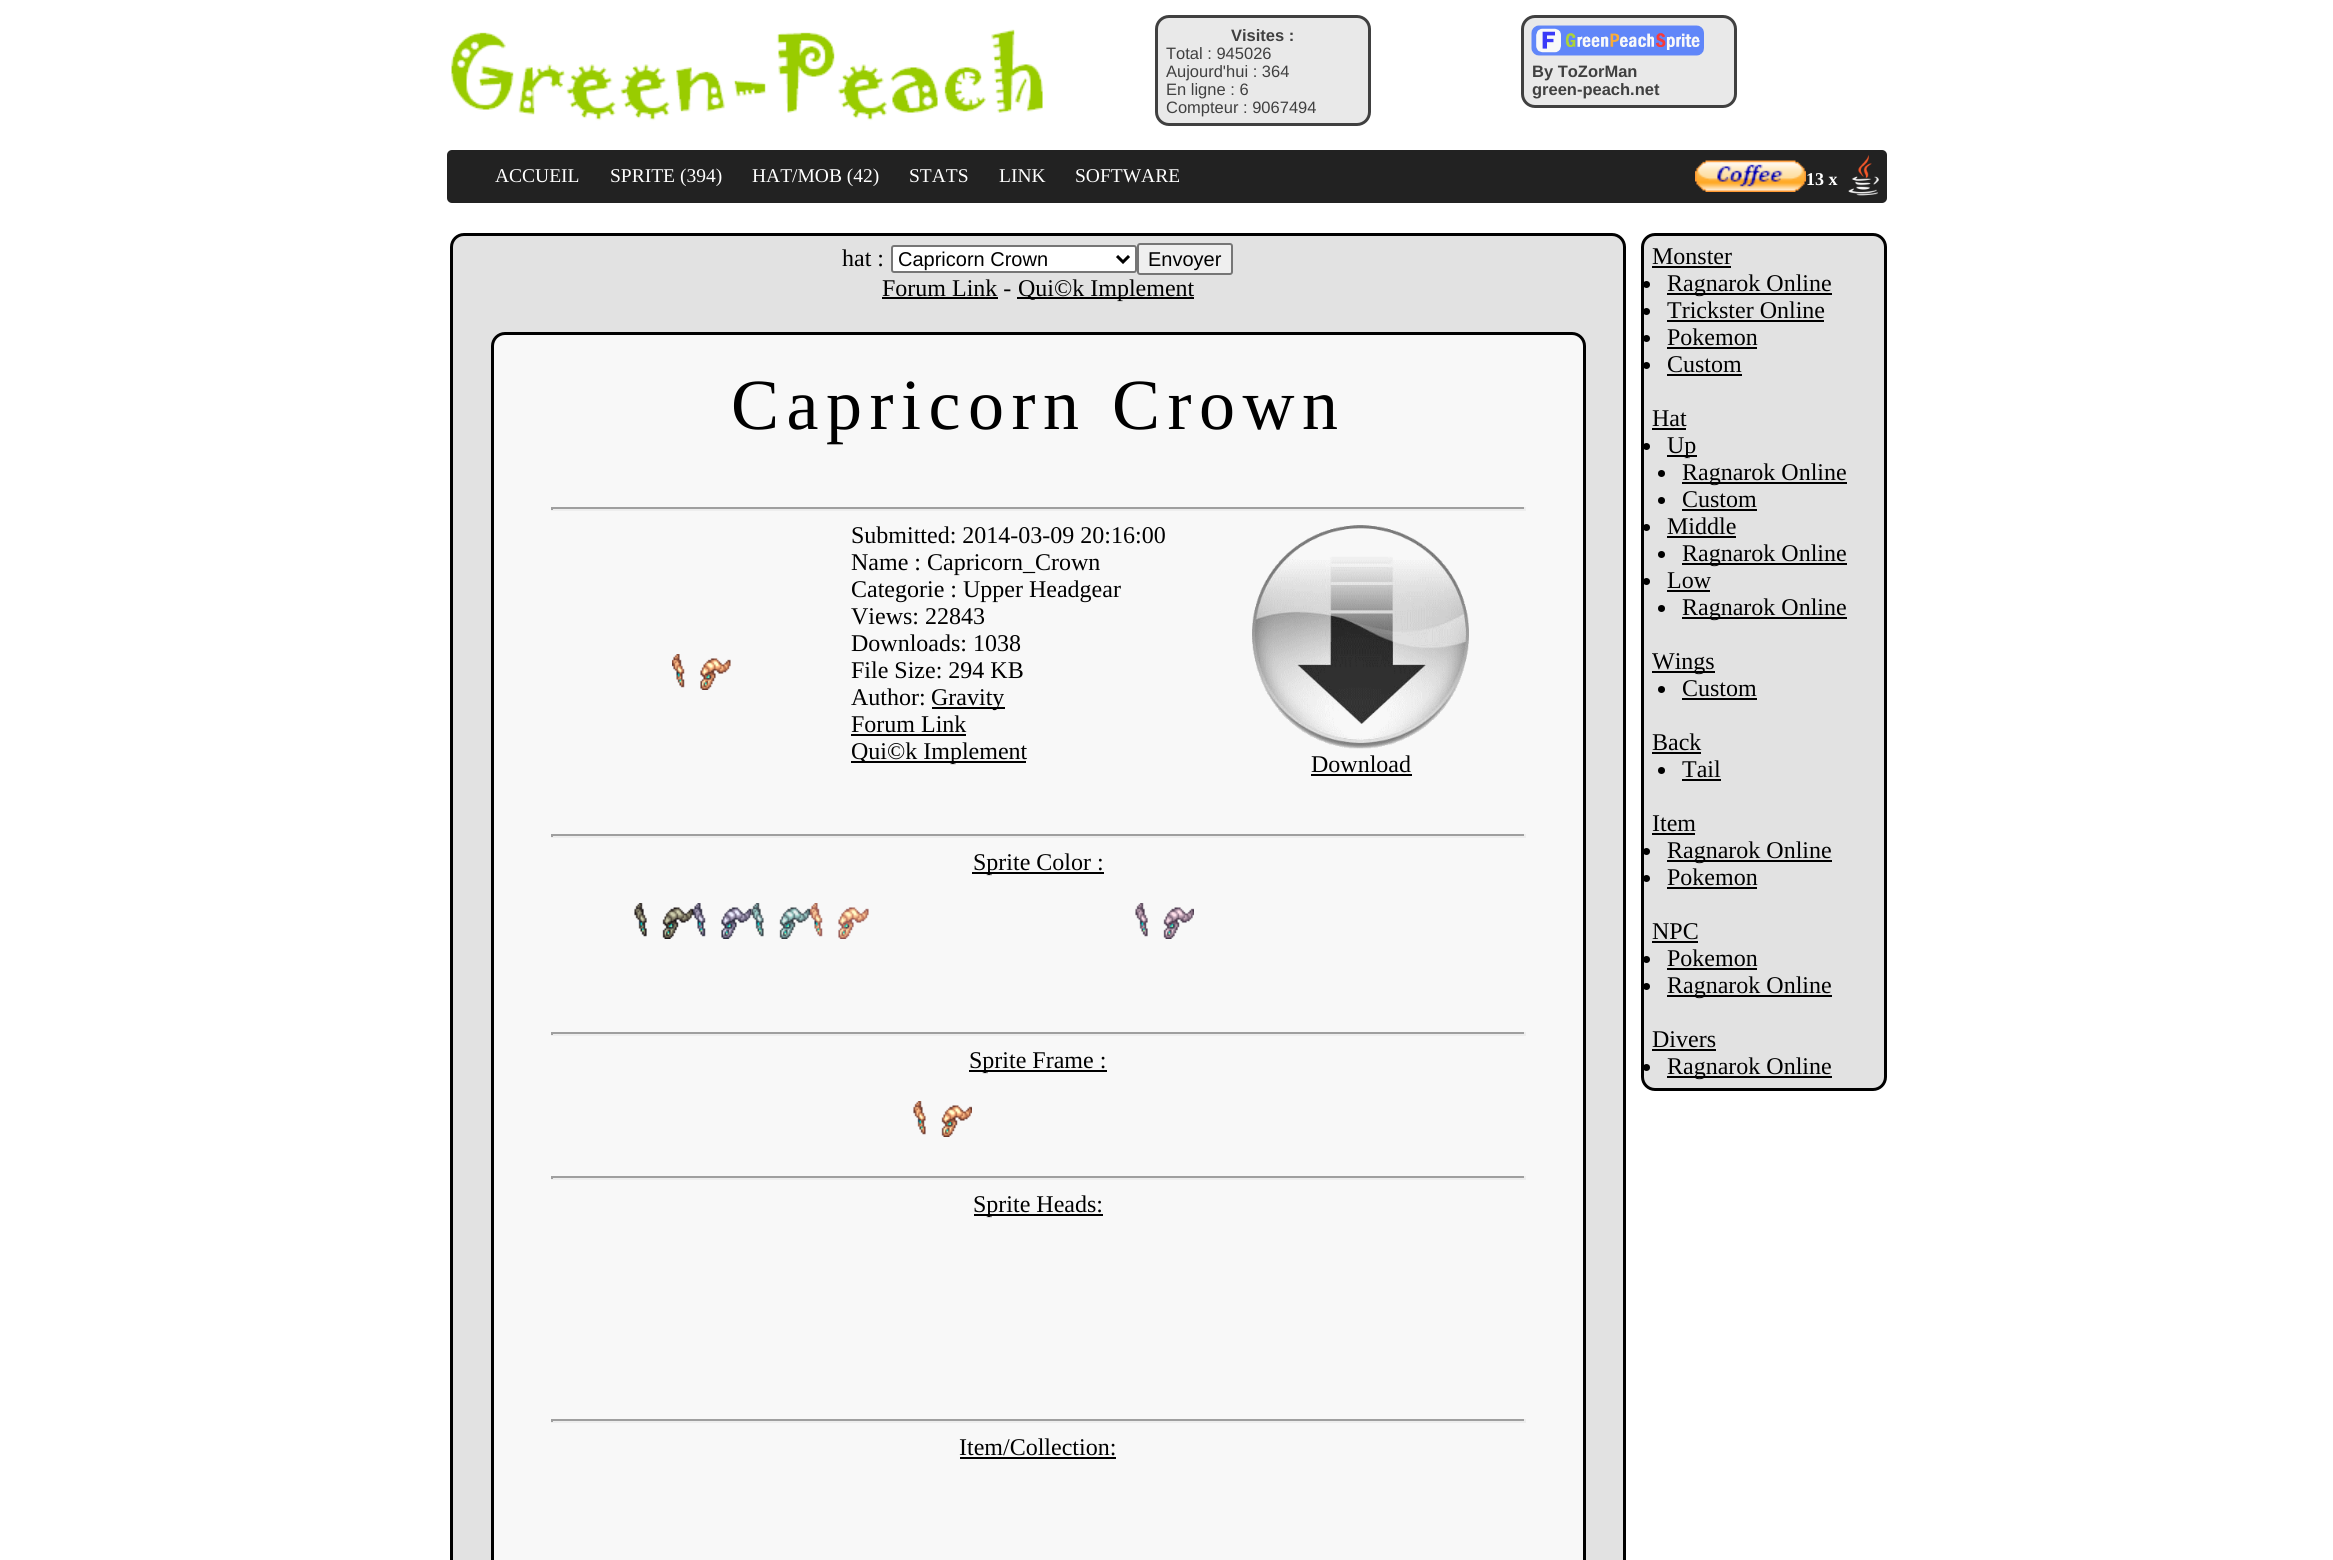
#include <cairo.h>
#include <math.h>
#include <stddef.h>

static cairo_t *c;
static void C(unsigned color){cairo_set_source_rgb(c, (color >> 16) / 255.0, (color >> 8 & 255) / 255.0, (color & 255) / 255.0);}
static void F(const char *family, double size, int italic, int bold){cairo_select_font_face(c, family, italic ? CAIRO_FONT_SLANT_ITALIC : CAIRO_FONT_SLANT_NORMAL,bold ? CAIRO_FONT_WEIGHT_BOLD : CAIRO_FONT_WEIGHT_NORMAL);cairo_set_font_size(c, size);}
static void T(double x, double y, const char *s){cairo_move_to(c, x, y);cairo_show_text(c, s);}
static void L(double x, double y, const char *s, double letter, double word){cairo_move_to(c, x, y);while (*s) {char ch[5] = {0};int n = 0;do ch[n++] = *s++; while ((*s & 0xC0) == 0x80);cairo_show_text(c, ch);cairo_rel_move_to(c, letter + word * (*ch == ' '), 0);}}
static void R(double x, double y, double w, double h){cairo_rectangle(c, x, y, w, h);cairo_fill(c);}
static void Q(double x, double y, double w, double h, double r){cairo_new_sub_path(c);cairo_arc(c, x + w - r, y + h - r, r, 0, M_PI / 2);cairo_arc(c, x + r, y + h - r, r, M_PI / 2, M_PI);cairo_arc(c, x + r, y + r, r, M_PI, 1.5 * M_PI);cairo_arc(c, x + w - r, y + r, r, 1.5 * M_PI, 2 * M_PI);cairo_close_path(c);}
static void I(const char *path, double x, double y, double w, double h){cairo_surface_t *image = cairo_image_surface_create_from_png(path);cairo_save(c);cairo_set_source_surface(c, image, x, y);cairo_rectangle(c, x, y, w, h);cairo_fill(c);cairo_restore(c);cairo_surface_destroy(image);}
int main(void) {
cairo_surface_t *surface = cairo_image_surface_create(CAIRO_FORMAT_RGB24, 2333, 1560);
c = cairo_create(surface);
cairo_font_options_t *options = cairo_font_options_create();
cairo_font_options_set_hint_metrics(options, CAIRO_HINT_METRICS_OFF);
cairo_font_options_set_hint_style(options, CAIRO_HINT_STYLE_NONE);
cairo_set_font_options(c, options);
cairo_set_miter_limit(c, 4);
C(0xffffff);
cairo_paint(c);
I("1.png",451,29,592,92);
C(0xe9e9e9);
Q(1156.5,16.5,213,108,12.5);
cairo_fill_preserve(c);
C(0x404040);
cairo_set_line_width(c,3);
cairo_stroke(c);
F("Liberation Sans",16.5,0,1);
T(1231,41,"Visites :");
F("Liberation Sans",16.5,0,0);
T(1166,59,"Total : 945026");
T(1166,77,"Aujourd'hui : 364");
T(1166,95,"En ligne : 6");
T(1166,113,"Compteur : 9067494");
C(0xe9e9e9);
Q(1522.5,16.5,213,90,12.5);
cairo_fill_preserve(c);
C(0x404040);
cairo_stroke(c);
I("2.png",1531,25,173,31);
F("Liberation Sans",16.5,0,1);
T(1532,77,"By ToZorMan");
T(1532,95,"green-peach.net");
C(0x222222);
Q(447,150,1440,53,5);
cairo_fill(c);
F("Liberation Serif",19.5,0,0);
C(0xffffff);
T(495,182,"ACCUEIL");
T(610,182,"SPRITE (394)");
T(752,182,"HAT/MOB (42)");
T(909,182,"STATS");
T(999,182,"LINK");
T(1075,182,"SOFTWARE");
I("3.png",1695,160,111,32);
F("Liberation Serif",18,0,1);
T(1806,185,"13 x");
I("4.png",1848,155,31,41);
C(0xe2e2e2);
Q(451.5,234.5,1173,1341,12.5);
cairo_fill_preserve(c);
C(0x000000);
cairo_stroke(c);
F("Liberation Serif",24,0,0);
T(842,266,"hat :");
C(0xffffff);
Q(892,246,244,26,2);
cairo_fill_preserve(c);
C(0x767676);
cairo_set_line_width(c,2);
cairo_stroke(c);
cairo_new_path(c);
cairo_move_to(c,1117,256);
cairo_line_to(c,1123,262);
cairo_line_to(c,1129,256);
C(0x000000);
cairo_set_line_width(c,3);
cairo_stroke(c);
F("Liberation Sans",20,0,0);
T(898,266,"Capricorn Crown");
C(0xefefef);
Q(1138,244,94,30,2);
cairo_fill_preserve(c);
C(0x767676);
cairo_set_line_width(c,2);
cairo_stroke(c);
C(0x000000);
T(1148,266,"Envoyer");
F("Liberation Serif",24,0,0);
T(882,296,"Forum Link -");
R(882,297,116,2);
R(1017,297,177,2);
T(1018,296,"Qui©k Implement");
C(0xf8f8f8);
Q(492.5,333.5,1092,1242,12.5);
cairo_fill_preserve(c);
C(0x000000);
cairo_set_line_width(c,3);
cairo_stroke(c);
F("Liberation Serif",72,0,0);
L(731,429,"Capricorn Crown",7.5,0);
C(0x9f9f9f);
R(551,507,975,2);
C(0xeeeeee);
R(1524,507,2,3);
R(551,509,975,2);
C(0x9f9f9f);
R(551,507,2,3);
I("5.png",672,654,59,36);
F("Liberation Serif",24,0,0);
C(0x000000);
T(851,543,"Submitted: 2014-03-09 20:16:00");
T(851,570,"Name : Capricorn_Crown");
T(851,597,"Categorie : Upper Headgear");
T(851,624,"Views: 22843");
T(851,651,"Downloads: 1038");
T(851,678,"File Size: 294 KB");
T(851,705,"Author:");
R(932,707,73,2);
T(931,705,"Gravity");
T(851,732,"Forum Link");
R(851,734,115,2);
R(851,761,175,2);
T(851,759,"Qui©k Implement");
I("6.png",1252,525,217,224);
T(1311,772,"Download");
R(1311,774,101,2);
C(0x9f9f9f);
R(551,834,975,2);
C(0xeeeeee);
R(1524,834,2,3);
R(551,836,975,2);
C(0x9f9f9f);
R(551,834,2,3);
C(0x000000);
R(972,872,132,2);
T(973,870,"Sprite Color :");
I("7.png",634,903,59,36);
I("8.png",693,903,59,36);
I("9.png",751,903,59,36);
I("10.png",810,903,59,36);
I("11.png",1135,903,59,36);
C(0x9f9f9f);
R(551,1032,975,2);
C(0xeeeeee);
R(1524,1032,2,3);
R(551,1034,975,2);
C(0x9f9f9f);
R(551,1032,2,3);
C(0x000000);
R(969,1070,138,2);
T(969,1068,"Sprite Frame :");
I("12.png",913,1101,59,36);
C(0x9f9f9f);
R(551,1176,975,2);
C(0xeeeeee);
R(1524,1176,2,3);
R(551,1178,975,2);
C(0x9f9f9f);
R(551,1176,2,3);
C(0x000000);
R(974,1214,129,2);
T(973,1212,"Sprite Heads:");
C(0x9f9f9f);
R(551,1419,975,2);
C(0xeeeeee);
R(1524,1419,2,3);
R(551,1421,975,2);
C(0x9f9f9f);
R(551,1419,2,3);
C(0x000000);
T(959,1455,"Item/Collection:");
R(960,1457,156,2);
C(0xe2e2e2);
Q(1642.5,234.5,243,855,12.5);
cairo_fill_preserve(c);
C(0x000000);
cairo_stroke(c);
T(1652,264,"Monster");
R(1652,266,79,2);
cairo_new_path(c);
cairo_arc(c,1646.5,284.5,3.5,0,2 * M_PI);
cairo_fill(c);
R(1667,293,165,2);
T(1667,291,"Ragnarok Online");
cairo_new_path(c);
cairo_arc(c,1646.5,311.5,3.5,0,2 * M_PI);
cairo_fill(c);
T(1667,318,"Trickster Online");
R(1667,320,157,2);
cairo_new_path(c);
cairo_arc(c,1646.5,338.5,3.5,0,2 * M_PI);
cairo_fill(c);
T(1667,345,"Pokemon");
R(1667,347,90,2);
cairo_new_path(c);
cairo_arc(c,1646.5,365.5,3.5,0,2 * M_PI);
cairo_fill(c);
T(1667,372,"Custom");
R(1667,374,75,2);
T(1652,426,"Hat");
R(1652,428,34,2);
cairo_new_path(c);
cairo_arc(c,1646.5,446.5,3.5,0,2 * M_PI);
cairo_fill(c);
R(1667,455,30,2);
T(1667,453,"Up");
cairo_new_path(c);
cairo_arc(c,1661.5,473.5,3.5,0,2 * M_PI);
cairo_fill(c);
R(1682,482,165,2);
T(1682,480,"Ragnarok Online");
cairo_new_path(c);
cairo_arc(c,1661.5,500.5,3.5,0,2 * M_PI);
cairo_fill(c);
T(1682,507,"Custom");
R(1682,509,75,2);
cairo_new_path(c);
cairo_arc(c,1646.5,527.5,3.5,0,2 * M_PI);
cairo_fill(c);
T(1667,534,"Middle");
R(1667,536,69,2);
cairo_new_path(c);
cairo_arc(c,1661.5,554.5,3.5,0,2 * M_PI);
cairo_fill(c);
R(1682,563,165,2);
T(1682,561,"Ragnarok Online");
cairo_new_path(c);
cairo_arc(c,1646.5,581.5,3.5,0,2 * M_PI);
cairo_fill(c);
T(1667,588,"Low");
R(1667,590,43,2);
cairo_new_path(c);
cairo_arc(c,1661.5,608.5,3.5,0,2 * M_PI);
cairo_fill(c);
R(1682,617,165,2);
T(1682,615,"Ragnarok Online");
R(1652,671,63,2);
T(1652,669,"Wings");
cairo_new_path(c);
cairo_arc(c,1661.5,689.5,3.5,0,2 * M_PI);
cairo_fill(c);
T(1682,696,"Custom");
R(1682,698,75,2);
T(1652,750,"Back");
R(1652,752,49,2);
cairo_new_path(c);
cairo_arc(c,1661.5,770.5,3.5,0,2 * M_PI);
cairo_fill(c);
T(1682,777,"Tail");
R(1682,779,39,2);
T(1652,831,"Item");
R(1652,833,43,2);
cairo_new_path(c);
cairo_arc(c,1646.5,851.5,3.5,0,2 * M_PI);
cairo_fill(c);
R(1667,860,165,2);
T(1667,858,"Ragnarok Online");
cairo_new_path(c);
cairo_arc(c,1646.5,878.5,3.5,0,2 * M_PI);
cairo_fill(c);
T(1667,885,"Pokemon");
R(1667,887,90,2);
T(1652,939,"NPC");
R(1652,941,46,2);
cairo_new_path(c);
cairo_arc(c,1646.5,959.5,3.5,0,2 * M_PI);
cairo_fill(c);
T(1667,966,"Pokemon");
R(1667,968,90,2);
cairo_new_path(c);
cairo_arc(c,1646.5,986.5,3.5,0,2 * M_PI);
cairo_fill(c);
R(1667,995,165,2);
T(1667,993,"Ragnarok Online");
T(1652,1047,"Divers");
R(1652,1049,64,2);
cairo_new_path(c);
cairo_arc(c,1646.5,1067.5,3.5,0,2 * M_PI);
cairo_fill(c);
R(1667,1076,165,2);
T(1667,1074,"Ragnarok Online");
cairo_surface_write_to_png(surface, "o.png");
cairo_font_options_destroy(options);
cairo_destroy(c);
cairo_surface_destroy(surface);
return 0;
}
